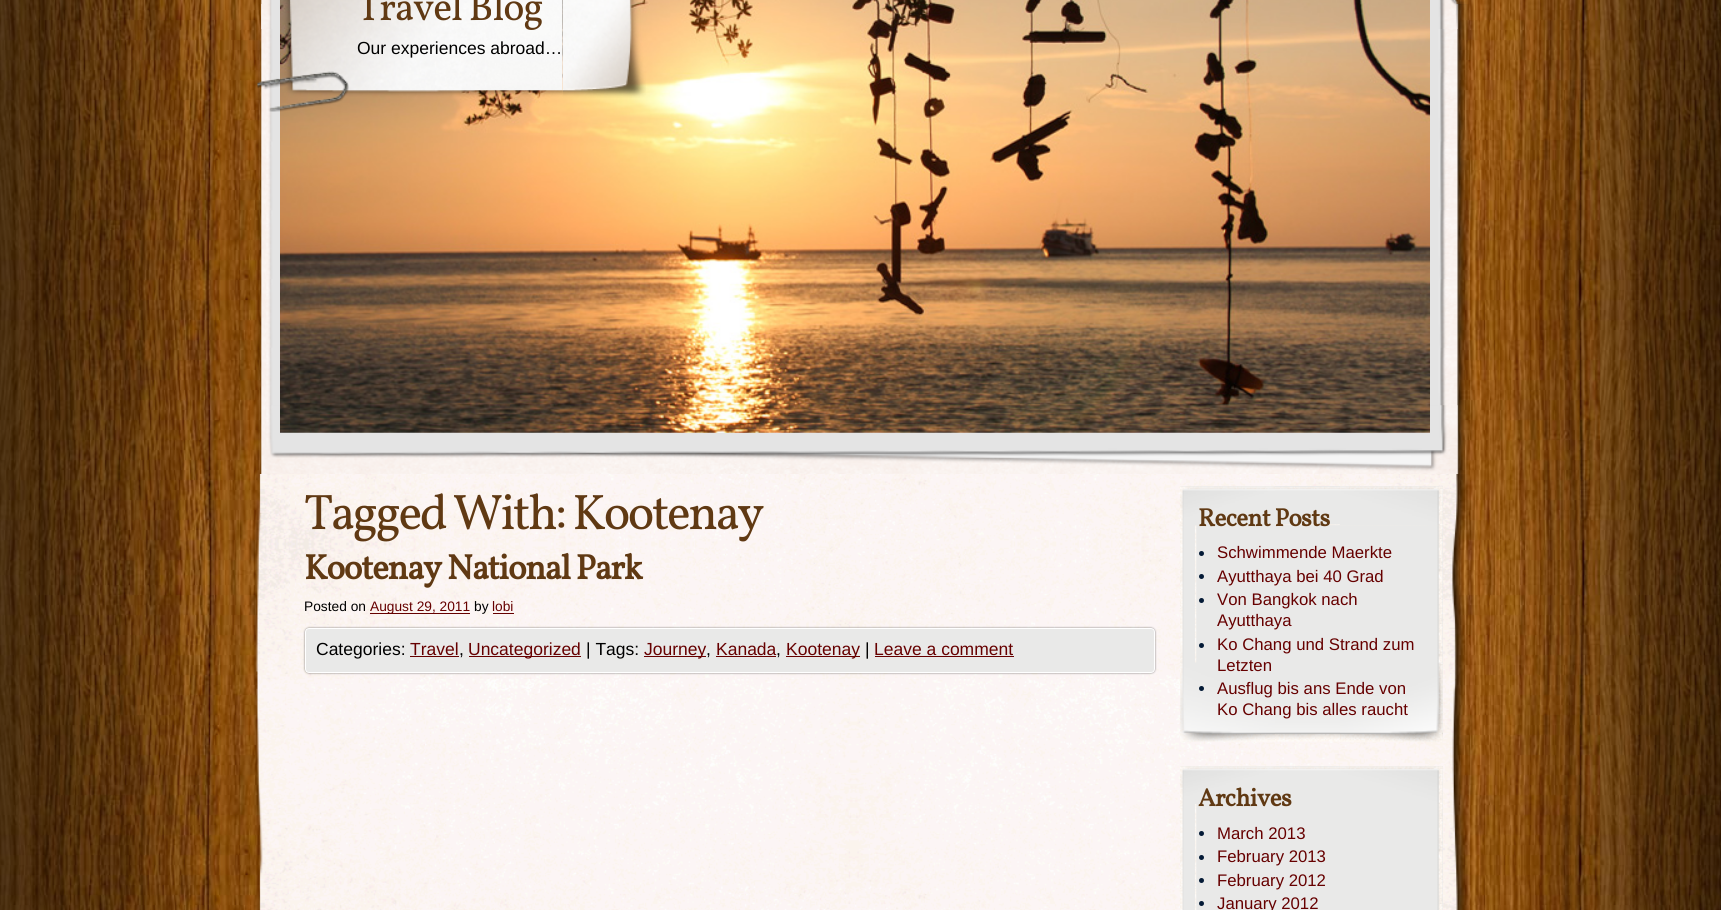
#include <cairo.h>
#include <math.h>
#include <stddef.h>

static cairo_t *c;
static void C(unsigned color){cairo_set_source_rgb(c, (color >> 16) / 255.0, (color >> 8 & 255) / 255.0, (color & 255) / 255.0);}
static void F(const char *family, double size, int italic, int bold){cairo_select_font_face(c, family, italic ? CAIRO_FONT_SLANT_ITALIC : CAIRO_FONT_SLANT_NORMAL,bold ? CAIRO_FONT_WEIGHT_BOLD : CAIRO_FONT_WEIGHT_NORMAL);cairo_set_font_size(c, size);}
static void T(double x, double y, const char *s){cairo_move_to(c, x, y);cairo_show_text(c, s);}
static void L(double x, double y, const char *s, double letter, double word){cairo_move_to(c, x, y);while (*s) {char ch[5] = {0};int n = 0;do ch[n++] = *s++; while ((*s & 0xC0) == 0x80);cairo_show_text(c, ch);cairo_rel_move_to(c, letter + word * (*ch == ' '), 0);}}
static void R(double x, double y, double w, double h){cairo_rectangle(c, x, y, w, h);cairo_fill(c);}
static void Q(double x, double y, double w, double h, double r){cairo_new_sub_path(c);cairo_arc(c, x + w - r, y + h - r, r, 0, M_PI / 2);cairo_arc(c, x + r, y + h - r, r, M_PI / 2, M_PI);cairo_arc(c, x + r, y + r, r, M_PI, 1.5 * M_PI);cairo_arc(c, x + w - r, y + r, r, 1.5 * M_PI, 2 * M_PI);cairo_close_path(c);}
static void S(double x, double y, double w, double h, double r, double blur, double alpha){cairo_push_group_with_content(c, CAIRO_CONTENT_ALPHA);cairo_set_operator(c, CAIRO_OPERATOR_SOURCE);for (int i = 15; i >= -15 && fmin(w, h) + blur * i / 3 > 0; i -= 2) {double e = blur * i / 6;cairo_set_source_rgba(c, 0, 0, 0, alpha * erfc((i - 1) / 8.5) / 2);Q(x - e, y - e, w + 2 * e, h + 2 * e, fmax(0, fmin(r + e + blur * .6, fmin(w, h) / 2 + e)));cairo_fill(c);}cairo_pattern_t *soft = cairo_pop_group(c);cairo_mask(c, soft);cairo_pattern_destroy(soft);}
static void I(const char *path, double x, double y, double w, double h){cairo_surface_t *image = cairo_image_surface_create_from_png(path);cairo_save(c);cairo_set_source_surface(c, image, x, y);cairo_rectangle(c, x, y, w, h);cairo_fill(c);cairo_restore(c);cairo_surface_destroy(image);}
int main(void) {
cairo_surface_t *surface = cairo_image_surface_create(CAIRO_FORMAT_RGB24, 1721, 910);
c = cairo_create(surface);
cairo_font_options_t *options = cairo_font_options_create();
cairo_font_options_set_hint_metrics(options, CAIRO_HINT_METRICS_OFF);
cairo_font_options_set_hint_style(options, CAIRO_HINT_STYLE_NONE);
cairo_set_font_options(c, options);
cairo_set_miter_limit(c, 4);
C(0xffffff);
cairo_paint(c);
I("1.png",0,0,1721,910);
I("2.png",0,0,1721,910);
I("3.png",258,4,1211,470);
I("4.png",258,0,1209,29);
I("5.png",265,405,1193,69);
I("6.png",280,0,1150,433);
I("7.png",562,0,84,98);
I("8.png",257,0,306,112);
F("Vollkorn",40,0,0);
C(0x603913);
L(357,20,"Travel Blog",-1.25,0);
F("Liberation Sans",17.5,0,0);
C(0x000000);
T(357,54,"Our experiences abroad…");
I("9.png",254,474,1216,436);
F("Vollkorn",50,0,0);
C(0x603913);
L(304,529,"Tagged With: Kootenay",-2.5,0);
F("Vollkorn",35,0,1);
L(304,579,"Kootenay National Park",-1.25,0);
F("Liberation Sans",13.75,0,0);
C(0x000000);
T(304,611,"Posted on");
C(0x660000);
R(370,613,100,1);
T(370,611,"August 29, 2011");
C(0x000000);
T(474,611,"by");
C(0x660000);
T(492,611,"lobi");
R(493,613,21,1);
C(0x000000);
S(305,628,850,45,4,1,.5);
C(0xe9e9e8);
Q(305.5,628.5,849,44,3.5);
cairo_fill_preserve(c);
C(0xffffff);
cairo_set_line_width(c,1);
cairo_stroke(c);
F("Liberation Sans",17.5,0,0);
C(0x000000);
T(316,655,"Categories:");
C(0x660000);
T(410,655,"Travel");
C(0x000000);
T(459,655,",");
C(0x660000);
R(410,656,49,1);
R(469,656,112,1);
T(468,655,"Uncategorized");
C(0x000000);
T(586,655,"| Tags:");
C(0x660000);
R(644,656,62,1);
T(644,655,"Journey");
C(0x000000);
T(706,655,",");
C(0x660000);
T(716,655,"Kanada");
C(0x000000);
T(776,655,",");
C(0x660000);
R(716,656,60,1);
R(786,656,74,1);
T(786,655,"Kootenay");
C(0x000000);
T(865,655,"|");
C(0x660000);
T(874,655,"Leave a comment");
R(875,656,139,1);
C(0xe9e9e8);
R(1180,486,263,255);
I("10.png",1180,486,263,256);
F("Vollkorn",25,0,1);
C(0x603913);
L(1198,526,"Recent Posts",-.6,0);
C(0x041a36);
cairo_new_path(c);
cairo_arc(c,1201.5,553.5,2.5,0,2 * M_PI);
cairo_fill(c);
F("Liberation Sans",16.75,0,0);
C(0x660000);
T(1217,558,"Schwimmende Maerkte");
C(0x041a36);
cairo_new_path(c);
cairo_arc(c,1201.5,576.5,2.5,0,2 * M_PI);
cairo_fill(c);
C(0x660000);
T(1217,582,"Ayutthaya bei 40 Grad");
C(0x041a36);
cairo_new_path(c);
cairo_arc(c,1201.5,600.5,2.5,0,2 * M_PI);
cairo_fill(c);
C(0x660000);
T(1217,605,"Von Bangkok nach");
T(1217,626,"Ayutthaya");
C(0x041a36);
cairo_new_path(c);
cairo_arc(c,1201.5,645.5,2.5,0,2 * M_PI);
cairo_fill(c);
C(0x660000);
T(1217,650,"Ko Chang und Strand zum");
T(1217,671,"Letzten");
C(0x041a36);
cairo_new_path(c);
cairo_arc(c,1201.5,688.5,2.5,0,2 * M_PI);
cairo_fill(c);
C(0x660000);
T(1217,694,"Ausflug bis ans Ende von");
T(1217,715,"Ko Chang bis alles raucht");
C(0xe9e9e8);
R(1180,766,263,144);
I("11.png",1180,766,263,144);
F("Vollkorn",25,0,1);
C(0x603913);
L(1198,806,"Archives",-.6,0);
C(0x041a36);
cairo_new_path(c);
cairo_arc(c,1201.5,833.5,2.5,0,2 * M_PI);
cairo_fill(c);
F("Liberation Sans",16.75,0,0);
C(0x660000);
T(1217,839,"March 2013");
C(0x041a36);
cairo_new_path(c);
cairo_arc(c,1201.5,857.5,2.5,0,2 * M_PI);
cairo_fill(c);
C(0x660000);
T(1217,862,"February 2013");
C(0x041a36);
cairo_new_path(c);
cairo_arc(c,1201.5,880.5,2.5,0,2 * M_PI);
cairo_fill(c);
C(0x660000);
T(1217,886,"February 2012");
C(0x041a36);
cairo_new_path(c);
cairo_arc(c,1201.5,903.5,2.5,0,2 * M_PI);
cairo_fill(c);
C(0x660000);
T(1217,909,"January 2012");
cairo_surface_write_to_png(surface, "o.png");
cairo_font_options_destroy(options);
cairo_destroy(c);
cairo_surface_destroy(surface);
return 0;
}
